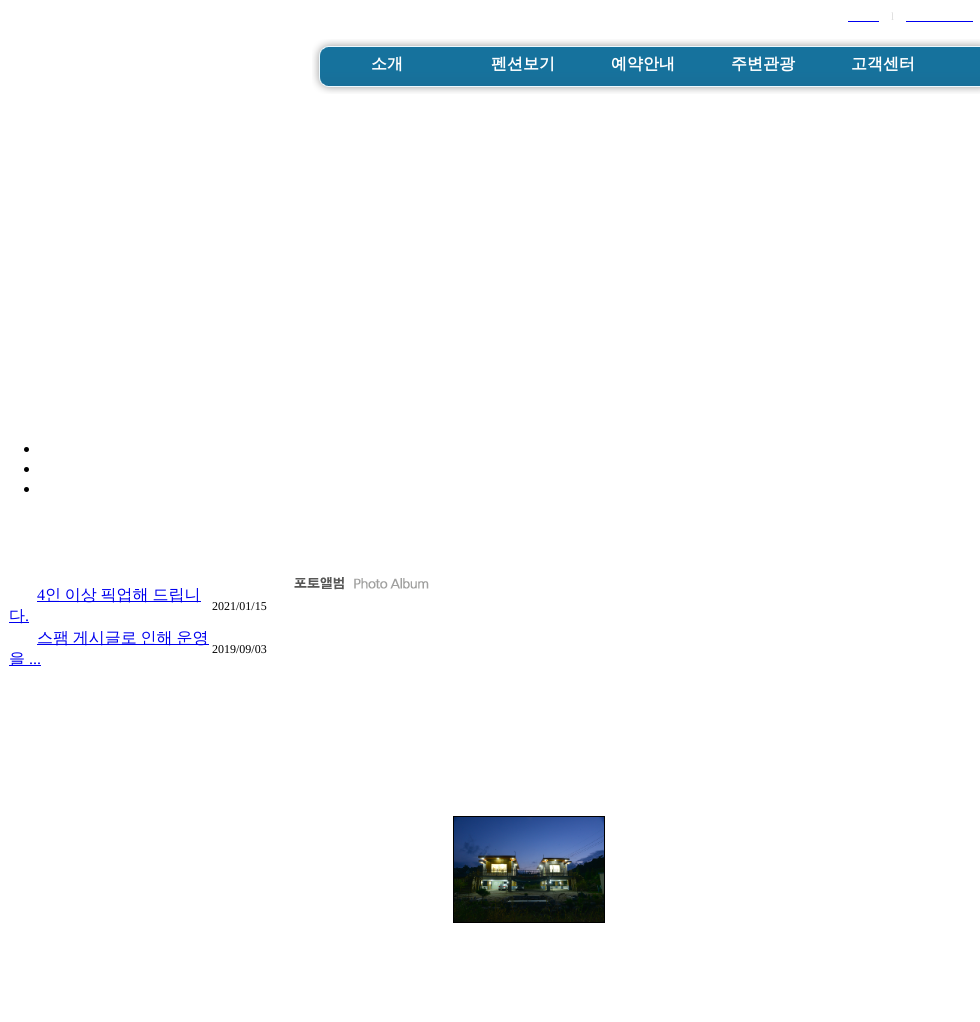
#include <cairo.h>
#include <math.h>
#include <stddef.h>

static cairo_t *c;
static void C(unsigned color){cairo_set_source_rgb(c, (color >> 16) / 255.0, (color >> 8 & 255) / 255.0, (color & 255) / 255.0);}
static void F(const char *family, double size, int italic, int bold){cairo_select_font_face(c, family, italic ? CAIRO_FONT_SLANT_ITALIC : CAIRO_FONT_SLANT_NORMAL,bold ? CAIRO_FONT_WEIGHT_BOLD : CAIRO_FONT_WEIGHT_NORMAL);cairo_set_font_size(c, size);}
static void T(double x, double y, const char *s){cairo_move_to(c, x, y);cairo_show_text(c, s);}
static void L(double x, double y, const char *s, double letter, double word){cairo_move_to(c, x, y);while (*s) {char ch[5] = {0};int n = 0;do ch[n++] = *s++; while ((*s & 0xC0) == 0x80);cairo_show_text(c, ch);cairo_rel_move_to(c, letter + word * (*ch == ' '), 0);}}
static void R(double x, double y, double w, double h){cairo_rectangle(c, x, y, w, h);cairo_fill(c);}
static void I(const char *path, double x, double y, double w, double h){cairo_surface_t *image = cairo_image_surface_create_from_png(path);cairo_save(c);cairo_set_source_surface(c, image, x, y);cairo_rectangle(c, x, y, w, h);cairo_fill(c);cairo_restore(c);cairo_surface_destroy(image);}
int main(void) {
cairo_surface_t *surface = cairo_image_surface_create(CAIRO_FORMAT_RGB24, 980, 1022);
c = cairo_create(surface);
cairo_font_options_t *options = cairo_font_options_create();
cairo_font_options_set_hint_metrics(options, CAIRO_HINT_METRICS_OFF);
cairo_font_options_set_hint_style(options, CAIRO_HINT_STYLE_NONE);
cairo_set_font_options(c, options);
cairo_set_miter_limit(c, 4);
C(0xffffff);
cairo_paint(c);
F("Liberation Serif",11,0,0);
C(0xdddddd);
T(891,20,"l");
C(0x0000ee);
R(848,21,31,1);
R(906,21,67,1);
I("1.png",312,39,668,55);
F("WenQuanYi Zen Hei",16,0,1);
C(0xffffff);
T(371,69,"소개");
T(491,69,"펜션보기");
T(611,69,"예약안내");
T(731,69,"주변관광");
T(851,69,"고객센터");
C(0x000000);
cairo_new_path(c);
cairo_arc(c,26.5,449.5,2.5,0,2 * M_PI);
cairo_fill(c);
cairo_arc(c,26.5,469.5,2.5,0,2 * M_PI);
cairo_fill(c);
cairo_arc(c,26.5,489.5,2.5,0,2 * M_PI);
cairo_fill(c);
F("Liberation Serif",16,0,0);
C(0x0000ee);
T(37,600,"4");
R(37,601,164,1);
F("WenQuanYi Zen Hei Medium",16,0,0);
L(45,600,"인 이상 픽업해 드립니",0,-1);
R(9,622,20,1);
T(9,621,"다");
F("Liberation Serif",16,0,0);
T(25,621,".");
F("Liberation Serif",12,0,0);
C(0x000000);
T(212,610,"2021/01/15");
C(0x0000ee);
R(37,644,172,1);
F("WenQuanYi Zen Hei Medium",16,0,0);
L(37,643,"스팸 게시글로 인해 운영",0,-1);
R(9,665,32,1);
T(9,664,"을");
F("Liberation Serif",16,0,0);
T(29,664,"...");
F("Liberation Serif",12,0,0);
C(0x000000);
T(212,653,"2019/09/03");
I("2.png",294,577,135,13);
cairo_rectangle(c,453.5,816.5,151,106);
cairo_set_line_width(c,1);
cairo_stroke(c);
I("3.png",454,817,150,105);
cairo_surface_write_to_png(surface, "o.png");
cairo_font_options_destroy(options);
cairo_destroy(c);
cairo_surface_destroy(surface);
return 0;
}
